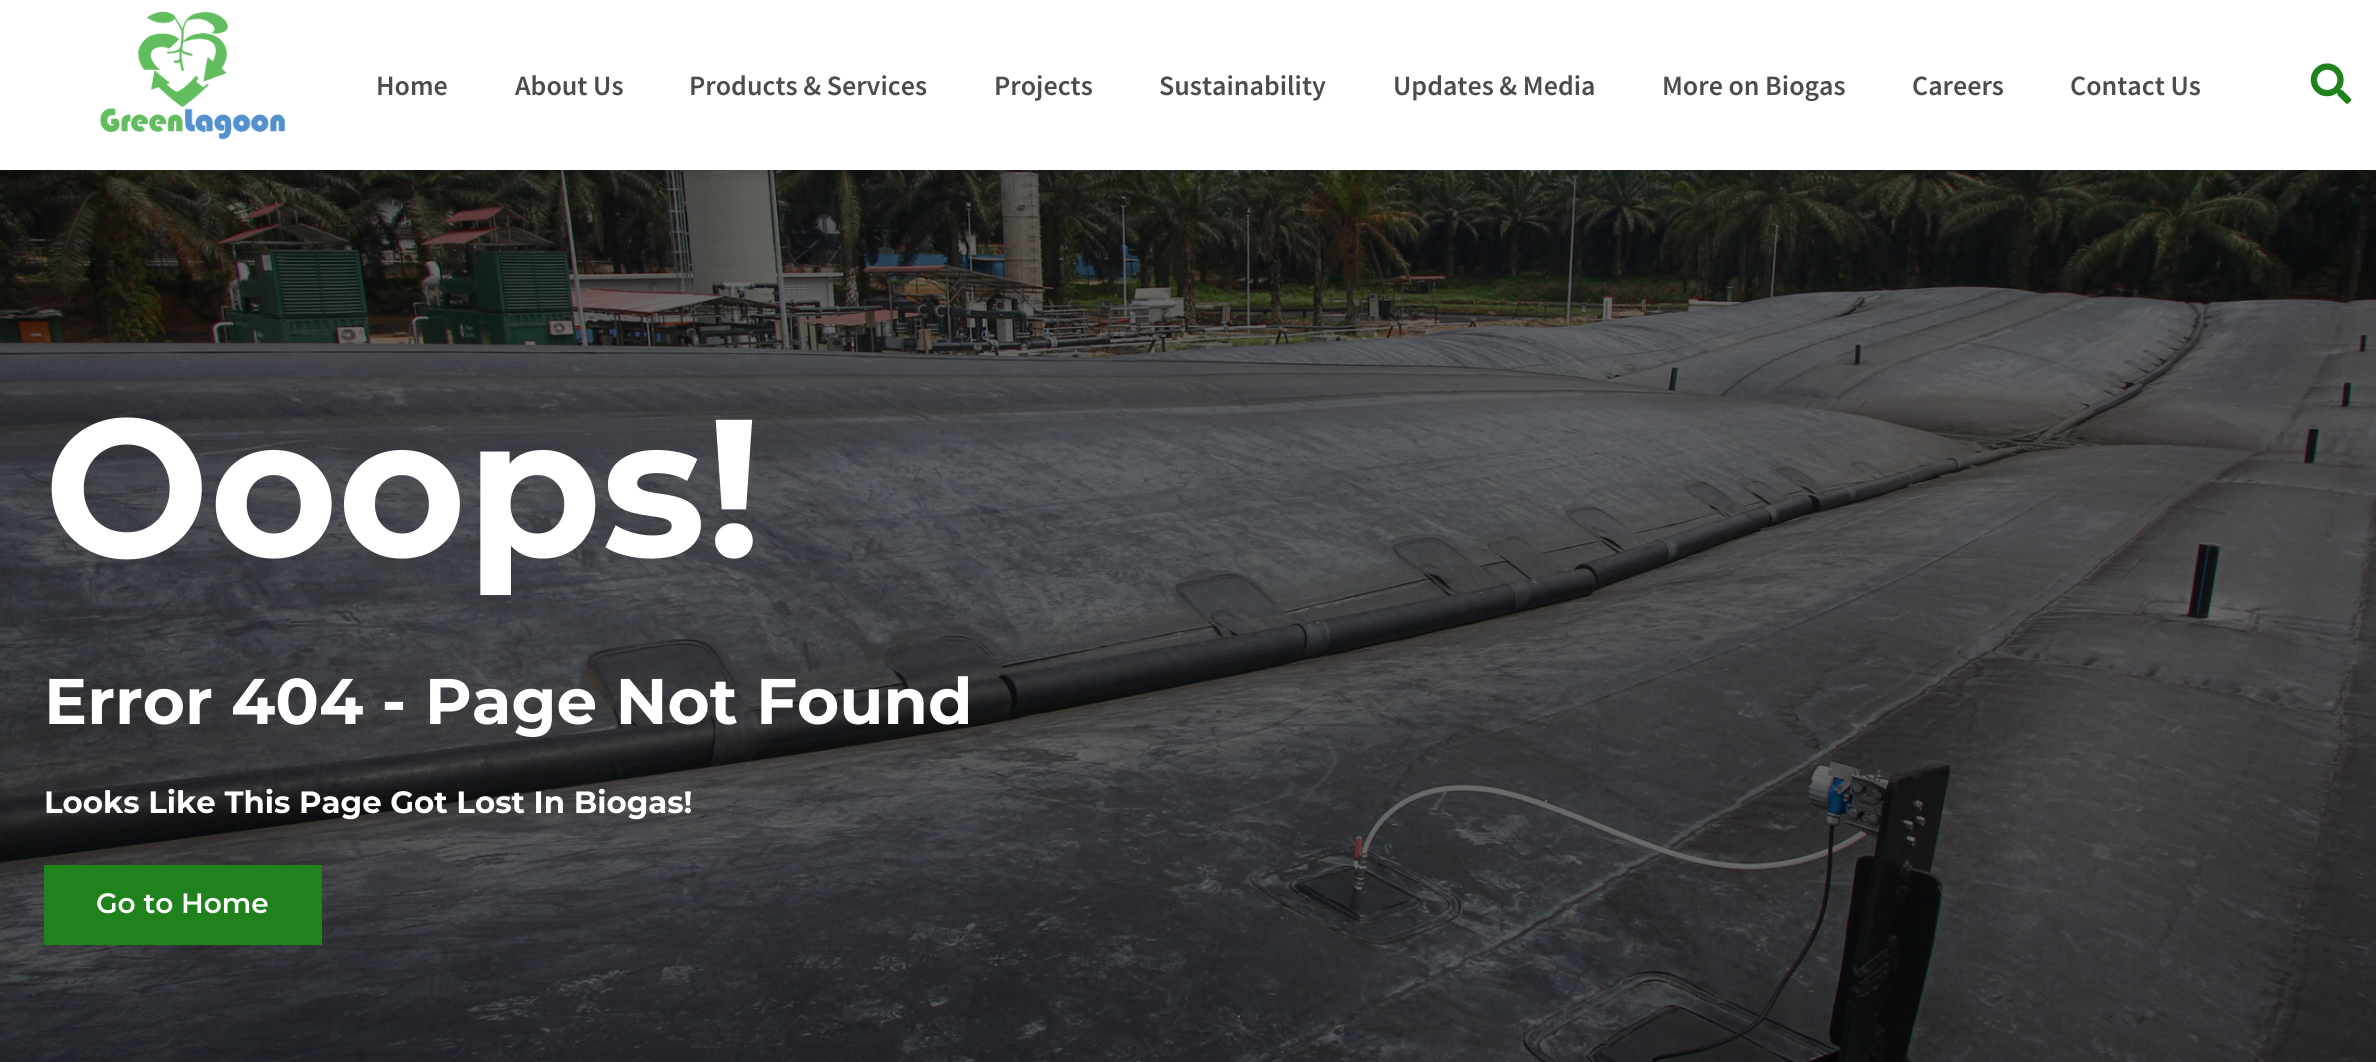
#include <cairo.h>
#include <math.h>
#include <stddef.h>

static cairo_t *c;
static void C(unsigned color){cairo_set_source_rgb(c, (color >> 16) / 255.0, (color >> 8 & 255) / 255.0, (color & 255) / 255.0);}
static void F(const char *family, double size, int italic, int bold){cairo_select_font_face(c, family, italic ? CAIRO_FONT_SLANT_ITALIC : CAIRO_FONT_SLANT_NORMAL,bold ? CAIRO_FONT_WEIGHT_BOLD : CAIRO_FONT_WEIGHT_NORMAL);cairo_set_font_size(c, size);}
static void T(double x, double y, const char *s){cairo_move_to(c, x, y);cairo_show_text(c, s);}
static void R(double x, double y, double w, double h){cairo_rectangle(c, x, y, w, h);cairo_fill(c);}
static void Q(double x, double y, double w, double h, double r){cairo_new_sub_path(c);cairo_arc(c, x + w - r, y + h - r, r, 0, M_PI / 2);cairo_arc(c, x + r, y + h - r, r, M_PI / 2, M_PI);cairo_arc(c, x + r, y + r, r, M_PI, 1.5 * M_PI);cairo_arc(c, x + w - r, y + r, r, 1.5 * M_PI, 2 * M_PI);cairo_close_path(c);}
static void S(double x, double y, double w, double h, double r, double blur, double alpha){cairo_push_group_with_content(c, CAIRO_CONTENT_ALPHA);cairo_set_operator(c, CAIRO_OPERATOR_SOURCE);for (int i = 15; i >= -15 && fmin(w, h) + blur * i / 3 > 0; i -= 2) {double e = blur * i / 6;cairo_set_source_rgba(c, 0, 0, 0, alpha * erfc((i - 1) / 8.5) / 2);Q(x - e, y - e, w + 2 * e, h + 2 * e, fmax(0, fmin(r + e + blur * .6, fmin(w, h) / 2 + e)));cairo_fill(c);}cairo_pattern_t *soft = cairo_pop_group(c);cairo_mask(c, soft);cairo_pattern_destroy(soft);}
static void I(const char *path, double x, double y, double w, double h){cairo_surface_t *image = cairo_image_surface_create_from_png(path);cairo_save(c);cairo_set_source_surface(c, image, x, y);cairo_rectangle(c, x, y, w, h);cairo_fill(c);cairo_restore(c);cairo_surface_destroy(image);}
int main(void) {
cairo_surface_t *surface = cairo_image_surface_create(CAIRO_FORMAT_RGB24, 2376, 1062);
c = cairo_create(surface);
cairo_font_options_t *options = cairo_font_options_create();
cairo_font_options_set_hint_metrics(options, CAIRO_HINT_METRICS_OFF);
cairo_font_options_set_hint_style(options, CAIRO_HINT_STYLE_NONE);
cairo_set_font_options(c, options);
cairo_set_miter_limit(c, 4);
C(0xffffff);
cairo_paint(c);
I("3.png",0,170,2376,892);
C(0x000000);
S(9,12,2359,153,0,9,.5);
C(0xffffff);
R(0,0,2376,170);
I("1.png",100,11,185,129);
F("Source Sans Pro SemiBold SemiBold",28,0,0);
C(0x4b4d4d);
T(376,95,"Home");
T(515,95,"About Us");
T(689,95,"Products & Services");
T(994,95,"Projects");
T(1159,95,"Sustainability");
T(1393,95,"Updates & Media");
T(1662,95,"More on Biogas");
T(1912,95,"Careers");
T(2070,95,"Contact Us");
I("2.png",2310,63,42,41);
F("Montserrat",196,0,1);
C(0xffffff);
T(44,557,"Ooops!");
F("Montserrat",64.4,0,1);
T(44,724,"Error 404 - Page Not Found");
F("Montserrat",30.8,0,1);
T(44,813,"Looks Like This Page Got Lost In Biogas!");
C(0x1f821c);
R(44,865,278,80);
F("Montserrat SemiBold",28,0,0);
C(0xffffff);
T(96,913,"Go to Home");
cairo_surface_write_to_png(surface, "o.png");
cairo_font_options_destroy(options);
cairo_destroy(c);
cairo_surface_destroy(surface);
return 0;
}
